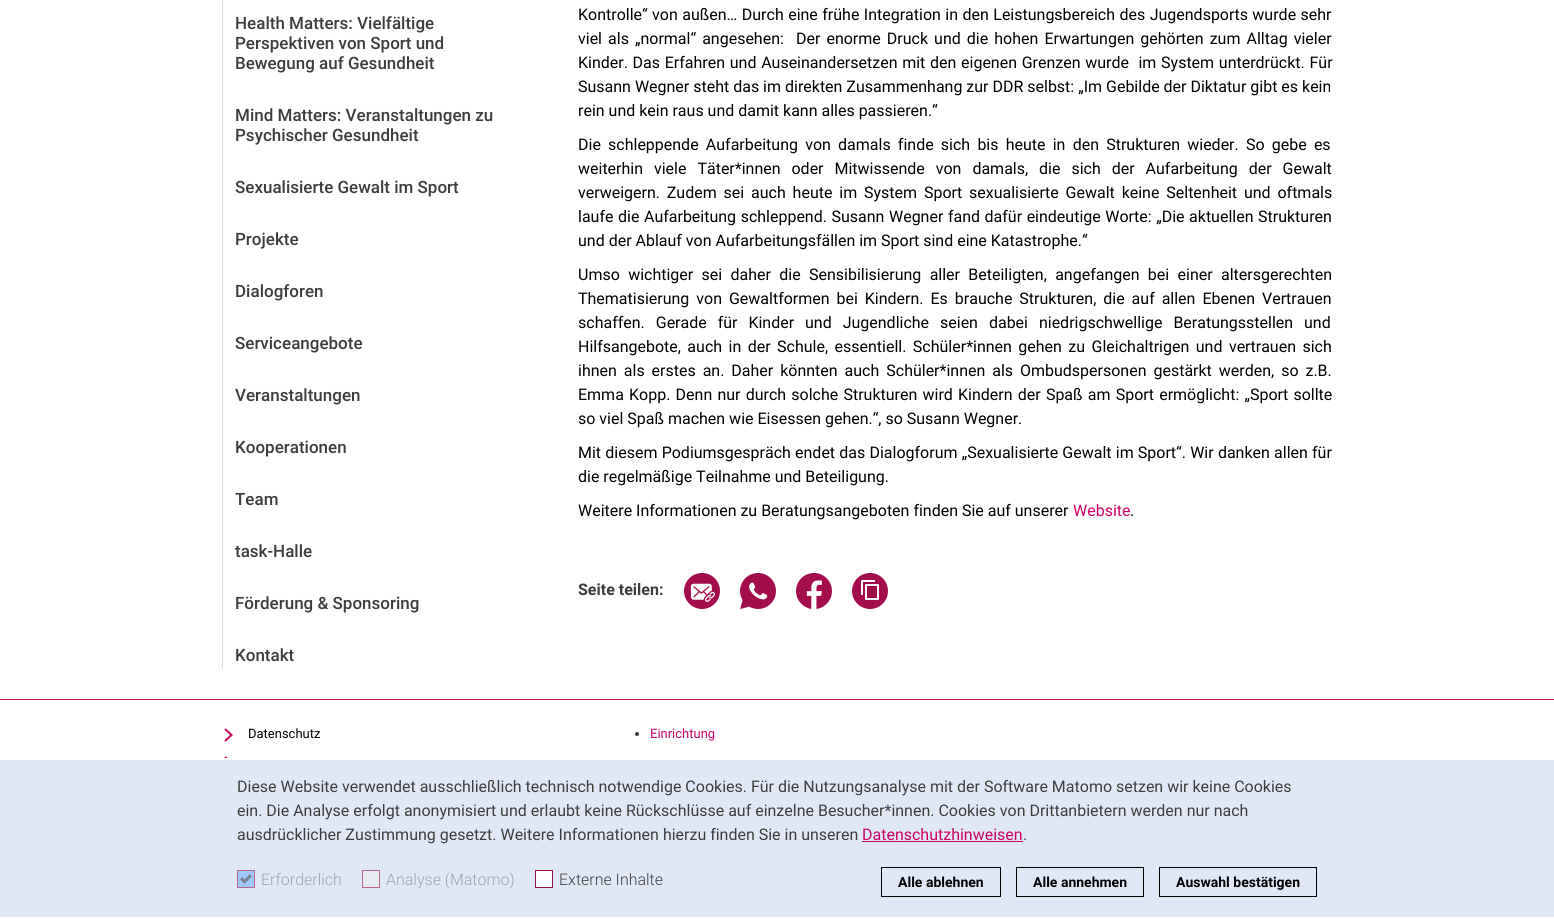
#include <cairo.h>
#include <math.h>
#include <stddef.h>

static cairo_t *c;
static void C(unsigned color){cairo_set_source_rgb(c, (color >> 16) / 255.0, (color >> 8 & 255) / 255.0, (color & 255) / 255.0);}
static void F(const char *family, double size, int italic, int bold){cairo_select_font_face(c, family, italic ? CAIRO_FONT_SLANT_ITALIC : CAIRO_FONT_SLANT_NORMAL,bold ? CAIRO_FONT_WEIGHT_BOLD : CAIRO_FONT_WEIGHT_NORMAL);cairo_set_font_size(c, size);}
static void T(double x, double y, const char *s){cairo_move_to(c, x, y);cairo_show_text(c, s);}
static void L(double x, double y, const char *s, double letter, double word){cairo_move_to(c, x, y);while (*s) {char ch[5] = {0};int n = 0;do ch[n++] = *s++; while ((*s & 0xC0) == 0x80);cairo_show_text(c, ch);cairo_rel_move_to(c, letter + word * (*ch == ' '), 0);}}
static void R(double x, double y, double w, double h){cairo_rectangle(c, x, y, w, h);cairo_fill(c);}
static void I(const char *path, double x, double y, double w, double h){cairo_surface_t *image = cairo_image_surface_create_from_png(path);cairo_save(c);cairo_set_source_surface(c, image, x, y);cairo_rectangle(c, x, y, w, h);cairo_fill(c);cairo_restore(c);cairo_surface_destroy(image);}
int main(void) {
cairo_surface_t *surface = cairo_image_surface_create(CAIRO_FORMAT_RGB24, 1554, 919);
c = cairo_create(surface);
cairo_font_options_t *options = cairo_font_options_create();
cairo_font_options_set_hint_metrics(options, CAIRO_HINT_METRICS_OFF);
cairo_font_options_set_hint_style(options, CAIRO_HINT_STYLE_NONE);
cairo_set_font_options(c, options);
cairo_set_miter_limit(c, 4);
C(0xffffff);
cairo_paint(c);
C(0xdadada);
R(222,0,1,669);
F("Roboto Medium",17,0,0);
C(0x3d3d3d);
T(235,29,"Health Matters: Vielfältige");
T(235,49,"Perspektiven von Sport und");
T(235,69,"Bewegung auf Gesundheit");
T(235,121,"Mind Matters: Veranstaltungen zu");
T(235,141,"Psychischer Gesundheit");
T(235,193,"Sexualisierte Gewalt im Sport");
T(235,245,"Projekte");
T(235,297,"Dialogforen");
T(235,349,"Serviceangebote");
T(235,401,"Veranstaltungen");
T(235,453,"Kooperationen");
T(235,505,"Team");
T(235,557,"task-Halle");
T(235,609,"Förderung & Sponsoring");
T(235,661,"Kontakt");
F("Roboto",16,0,0);
C(0x000000);
L(578,20,"Kontrolle“ von außen… Durch eine frühe Integration in den Leistungsbereich des Jugendsports wurde sehr",0,.5);
L(578,44,"viel als „normal“ angesehen:  Der enorme Druck und die hohen Erwartungen gehörten zum Alltag vieler",0,2.1);
L(578,68,"Kinder. Das Erfahren und Auseinandersetzen mit den eigenen Grenzen wurde  im System unterdrückt. Für",0,.75);
T(578,92,"Susann Wegner steht das im direkten Zusammenhang zur DDR selbst: „Im Gebilde der Diktatur gibt es kein");
T(578,116,"rein und kein raus und damit kann alles passieren.“");
L(578,150,"Die schleppende Aufarbeitung von damals finde sich bis heute in den Strukturen wieder. So gebe es",0,3.25);
L(578,174,"weiterhin viele Täter*innen oder Mitwissende von damals, die sich der Aufarbeitung der Gewalt",0,7);
L(578,198,"verweigern. Zudem sei auch heute im System Sport sexualisierte Gewalt keine Seltenheit und oftmals",0,2.9);
L(578,222,"laufe die Aufarbeitung schleppend. Susann Wegner fand dafür eindeutige Worte: „Die aktuellen Strukturen",0,.6);
T(578,246,"und der Ablauf von Aufarbeitungsfällen im Sport sind eine Katastrophe.“");
L(578,280,"Umso wichtiger sei daher die Sensibilisierung aller Beteiligten, angefangen bei einer altersgerechten",0,4.4);
L(578,304,"Thematisierung von Gewaltformen bei Kindern. Es brauche Strukturen, die auf allen Ebenen Vertrauen",0,3);
L(578,328,"schaffen. Gerade für Kinder und Jugendliche seien dabei niedrigschwellige Beratungsstellen und",0,7);
L(578,352,"Hilfsangebote, auch in der Schule, essentiell. Schüler*innen gehen zu Gleichaltrigen und vertrauen sich",0,2.5);
L(578,376,"ihnen als erstes an. Daher könnten auch Schüler*innen als Ombudspersonen gestärkt werden, so z.B.",0,3);
L(578,400,"Emma Kopp. Denn nur durch solche Strukturen wird Kindern der Spaß am Sport ermöglicht: „Sport sollte",0,1.25);
T(578,424,"so viel Spaß machen wie Eisessen gehen.“, so Susann Wegner.");
L(578,458,"Mit diesem Podiumsgespräch endet das Dialogforum „Sexualisierte Gewalt im Sport“. Wir danken allen für",0,.25);
T(578,482,"die regelmäßige Teilnahme und Beteiligung.");
T(578,516,"Weitere Informationen zu Beratungsangeboten finden Sie auf unserer");
C(0xcc0066);
T(1073,516,"Website");
C(0x000000);
T(1130,516,".");
F("Roboto",16,0,1);
C(0x3d3d3d);
T(578,595,"Seite teilen:");
I("1.png",684,573,36,36);
I("2.png",740,573,36,36);
I("3.png",796,573,36,36);
I("4.png",852,573,36,36);
C(0xc7105c);
R(0,699,1554,1);
cairo_new_path(c);
cairo_move_to(c,225,741);
cairo_line_to(c,231.5,735);
cairo_line_to(c,225,729);
cairo_move_to(c,225,769);
cairo_line_to(c,231.5,763);
cairo_line_to(c,225,757);
cairo_set_line_width(c,2.1);
cairo_stroke(c);
F("Roboto",13,0,0);
C(0x000000);
T(248,738,"Datenschutz");
C(0x3d3d3d);
cairo_new_path(c);
cairo_arc(c,637,734,2,0,2 * M_PI);
cairo_fill(c);
C(0xcc0066);
T(650,738,"Einrichtung");
C(0xe1e8f5);
R(0,760,1554,157);
C(0xffffff);
R(224,758,6,2);
F("Roboto",16,0,0);
C(0x3d3d3d);
T(237,792,"Diese Website verwendet ausschließlich technisch notwendige Cookies. Für die Nutzungsanalyse mit der Software Matomo setzen wir keine Cookies");
T(237,816,"ein. Die Analyse erfolgt anonymisiert und erlaubt keine Rückschlüsse auf einzelne Besucher*innen. Cookies von Drittanbietern werden nur nach");
T(237,840,"ausdrücklicher Zustimmung gesetzt. Weitere Informationen hierzu finden Sie in unseren");
C(0xcc0066);
T(862,840,"Datenschutzhinweisen");
R(862,841,161,1);
C(0x3d3d3d);
T(1023,840,".");
C(0x9ec8f8);
cairo_rectangle(c,237.5,870.5,17,17);
cairo_fill_preserve(c);
C(0xb7668d);
cairo_set_line_width(c,1);
cairo_stroke(c);
F("Roboto Light",16,0,0);
C(0x9ba3ad);
T(261,885,"Erforderlich");
I("5.png",240,874,12,10);
C(0xe6eaf1);
cairo_rectangle(c,362.5,870.5,17,17);
cairo_fill_preserve(c);
C(0xb7668d);
cairo_stroke(c);
C(0x9ba3ad);
T(386,885,"Analyse (Matomo)");
C(0xffffff);
cairo_rectangle(c,535.5,870.5,17,17);
cairo_fill_preserve(c);
C(0x9b1047);
cairo_stroke(c);
C(0x3d3d3d);
T(559,885,"Externe Inhalte");
cairo_rectangle(c,881.5,867.5,119,29);
C(0x000000);
cairo_stroke(c);
F("Roboto",14,0,1);
T(898,887,"Alle ablehnen");
cairo_rectangle(c,1016.5,867.5,127,29);
cairo_stroke(c);
T(1033,887,"Alle annehmen");
cairo_rectangle(c,1159.5,867.5,157,29);
cairo_stroke(c);
T(1176,887,"Auswahl bestätigen");
cairo_surface_write_to_png(surface, "o.png");
cairo_font_options_destroy(options);
cairo_destroy(c);
cairo_surface_destroy(surface);
return 0;
}
